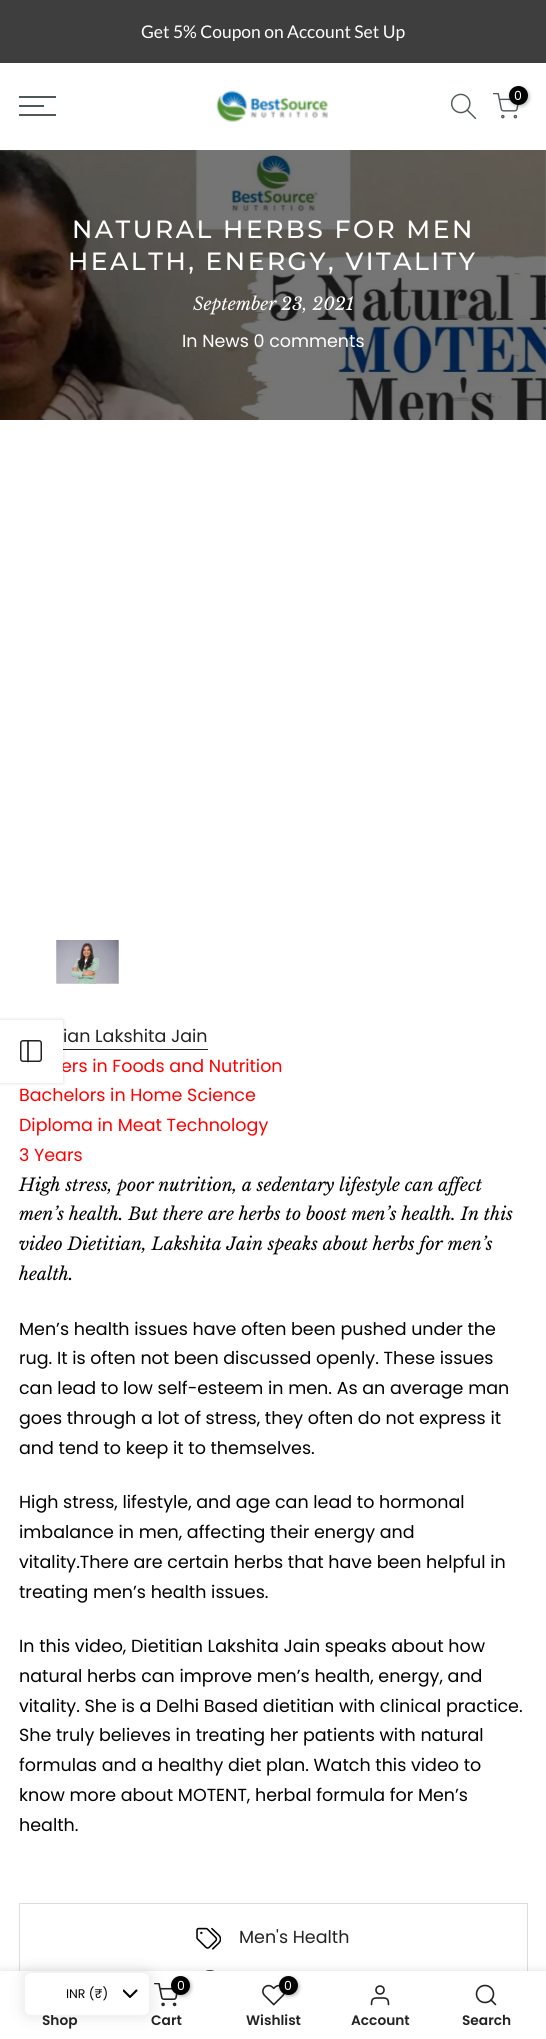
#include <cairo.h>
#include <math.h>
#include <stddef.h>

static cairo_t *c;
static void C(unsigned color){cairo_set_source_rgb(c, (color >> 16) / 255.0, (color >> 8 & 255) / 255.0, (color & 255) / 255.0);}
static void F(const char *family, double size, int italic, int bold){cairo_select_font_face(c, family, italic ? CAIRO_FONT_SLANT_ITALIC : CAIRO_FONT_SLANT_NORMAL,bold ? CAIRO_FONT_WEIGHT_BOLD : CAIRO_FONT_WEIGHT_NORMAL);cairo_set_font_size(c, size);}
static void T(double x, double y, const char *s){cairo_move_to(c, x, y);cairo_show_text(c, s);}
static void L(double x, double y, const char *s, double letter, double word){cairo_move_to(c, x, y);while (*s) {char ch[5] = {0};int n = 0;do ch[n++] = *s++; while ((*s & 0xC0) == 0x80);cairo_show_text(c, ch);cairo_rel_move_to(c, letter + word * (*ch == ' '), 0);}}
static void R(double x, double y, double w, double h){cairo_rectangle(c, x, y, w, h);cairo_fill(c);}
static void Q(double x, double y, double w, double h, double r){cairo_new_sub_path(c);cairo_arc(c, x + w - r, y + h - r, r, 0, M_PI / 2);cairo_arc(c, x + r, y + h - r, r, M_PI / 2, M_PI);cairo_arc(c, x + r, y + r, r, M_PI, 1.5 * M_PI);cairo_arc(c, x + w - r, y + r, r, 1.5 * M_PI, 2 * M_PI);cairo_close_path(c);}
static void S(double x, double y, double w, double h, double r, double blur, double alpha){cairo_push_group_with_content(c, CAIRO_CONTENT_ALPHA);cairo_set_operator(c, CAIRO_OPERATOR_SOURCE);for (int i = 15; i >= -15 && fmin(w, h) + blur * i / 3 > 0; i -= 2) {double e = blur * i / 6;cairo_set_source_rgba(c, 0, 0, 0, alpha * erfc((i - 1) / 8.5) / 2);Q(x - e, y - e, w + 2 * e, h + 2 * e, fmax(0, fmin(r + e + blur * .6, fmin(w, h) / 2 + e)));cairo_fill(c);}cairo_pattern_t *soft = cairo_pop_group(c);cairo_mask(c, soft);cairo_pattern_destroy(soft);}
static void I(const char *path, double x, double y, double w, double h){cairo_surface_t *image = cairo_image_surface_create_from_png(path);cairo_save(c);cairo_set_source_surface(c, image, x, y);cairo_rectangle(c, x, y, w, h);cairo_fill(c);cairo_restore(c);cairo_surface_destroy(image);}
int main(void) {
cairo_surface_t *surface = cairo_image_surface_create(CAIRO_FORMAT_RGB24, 546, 2039);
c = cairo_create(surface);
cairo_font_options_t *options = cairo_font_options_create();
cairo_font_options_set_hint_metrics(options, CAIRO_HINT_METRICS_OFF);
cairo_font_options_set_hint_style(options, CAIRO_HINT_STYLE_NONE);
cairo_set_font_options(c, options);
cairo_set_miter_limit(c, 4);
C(0xffffff);
cairo_paint(c);
C(0x3e3e3e);
R(0,0,546,63);
F("Lato",17.5,0,0);
C(0xffffff);
T(141,38,"Get 5% Coupon on Account Set Up");
I("1.png",216,90,112,32);
I("2.png",450,93,27,27);
I("3.png",493,93,26,26);
C(0x000000);
S(510,88,19,18,9,2,.3);
C(0x000000);
cairo_arc(c,518.5,95.5,9.5,0,2 * M_PI);
cairo_fill(c);
F("Poppins",12.5,0,0);
C(0xffffff);
T(514,100,"0");
C(0x4d5959);
R(19,96,37,2);
R(19,105,25,2);
R(19,114,37,2);
I("4.png",0,150,546,270);
F("Montserrat Medium",25,0,0);
C(0xffffff);
L(72,238,"NATURAL HERBS FOR MEN",2.5,0);
L(68,270,"HEALTH, ENERGY, VITALITY",2.5,0);
F("Libre Baskerville",17.5,1,0);
T(193,310,"September 23, 2021");
F("Poppins",17.5,0,0);
T(182,347,"In News 0 comments");
C(0x222222);
R(63,1049,145,1);
C(0x000000);
S(0,1020,63,63,0,2,.15);
C(0xff0000);
T(61,1072,"ers in Foods and Nutrition");
C(0xffffff);
R(0,1020,63,63);
Q(20.75,1040.75,20.5,20.5,2.25);
C(0x222222);
cairo_set_line_width(c,1.5);
cairo_stroke(c);
cairo_new_path(c);
cairo_move_to(c,28,1041);
cairo_line_to(c,28,1061.5);
cairo_set_line_width(c,1.7);
cairo_set_line_cap(c,CAIRO_LINE_CAP_ROUND);
cairo_set_line_join(c,CAIRO_LINE_JOIN_ROUND);
cairo_stroke(c);
I("5.png",56,940,63,44);
T(63,1042,"ian Lakshita Jain");
C(0xff0000);
T(19,1101,"Bachelors in Home Science");
T(19,1131,"Diploma in Meat Technology");
T(19,1161,"3 Years");
F("Libre Baskerville",17.5,1,0);
C(0x000000);
T(19,1191,"High stress, poor nutrition, a sedentary lifestyle can affect");
T(19,1220,"men’s health. But there are herbs to boost men’s health. In this");
T(19,1250,"video Dietitian, Lakshita Jain speaks about herbs for men’s");
T(19,1280,"health.");
F("Poppins",17.5,0,0);
T(19,1335,"Men’s health issues have often been pushed under the");
T(19,1364,"rug. It is often not been discussed openly. These issues");
T(19,1394,"can lead to low self-esteem in men. As an average man");
T(19,1424,"goes through a lot of stress, they often do not express it");
T(19,1454,"and tend to keep it to themselves.");
T(19,1508,"High stress, lifestyle, and age can lead to hormonal");
T(19,1538,"imbalance in men, affecting their energy and");
T(19,1568,"vitality.There are certain herbs that have been helpful in");
T(19,1598,"treating men’s health issues.");
T(19,1652,"In this video, Dietitian Lakshita Jain speaks about how");
T(19,1682,"natural herbs can improve men’s health, energy, and");
T(19,1712,"vitality. She is a Delhi Based dietitian with clinical practice.");
T(19,1741,"She truly believes in treating her patients with natural");
T(19,1771,"formulas and a healthy diet plan. Watch this video to");
T(19,1801,"know more about MOTENT, herbal formula for Men’s");
T(19,1831,"health.");
cairo_rectangle(c,19.5,1903.5,508,111);
C(0xdddddd);
cairo_set_line_width(c,1);
cairo_set_line_cap(c,CAIRO_LINE_CAP_BUTT);
cairo_set_line_join(c,CAIRO_LINE_JOIN_MITER);
cairo_stroke(c);
I("6.png",196,1927,25,23);
C(0x222222);
T(239,1943,"Men's Health");
I("7.png",205,1970,10,1);
C(0x000000);
S(0,1971,546,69,0,5.5,.12);
C(0xffffff);
R(0,1971,546,68);
F("Poppins SemiBold",13.75,0,0);
C(0x222222);
T(42,2025,"Shop");
I("8.png",154,1983,24,24);
C(0x000000);
S(173,1978,18,18,9,2,.3);
C(0x000000);
cairo_arc(c,180.5,1985.5,9.5,0,2 * M_PI);
cairo_fill(c);
F("Poppins",12.5,0,0);
C(0xffffff);
T(177,1990,"0");
F("Poppins SemiBold",13.75,0,0);
C(0x222222);
T(151,2025,"Cart");
I("9.png",262,1984,23,22);
C(0x000000);
S(280,1978,19,18,9,2,.3);
C(0x000000);
cairo_arc(c,288.5,1985.5,9.5,0,2 * M_PI);
cairo_fill(c);
F("Poppins",12.5,0,0);
C(0xffffff);
T(284,1990,"0");
F("Poppins SemiBold",13.75,0,0);
C(0x222222);
T(246,2025,"Wishlist");
cairo_new_path(c);
cairo_arc(c,380,1990,4,0,2 * M_PI);
cairo_set_line_width(c,1.6);
cairo_stroke(c);
cairo_new_path(c);
cairo_move_to(c,388.5,2004.5);
cairo_curve_to(c,388.5,1997.5,386,1998,380,1998);
cairo_curve_to(c,374,1998,371.5,1997.5,371.5,2004.5);
cairo_set_line_cap(c,CAIRO_LINE_CAP_ROUND);
cairo_set_line_join(c,CAIRO_LINE_JOIN_ROUND);
cairo_stroke(c);
T(351,2025,"Account");
cairo_new_path(c);
cairo_arc(c,485,1994,8.5,0,2 * M_PI);
cairo_set_line_cap(c,CAIRO_LINE_CAP_BUTT);
cairo_set_line_join(c,CAIRO_LINE_JOIN_MITER);
cairo_stroke(c);
cairo_new_path(c);
cairo_move_to(c,495.5,2004.5);
cairo_line_to(c,491,2000);
cairo_set_line_cap(c,CAIRO_LINE_CAP_ROUND);
cairo_set_line_join(c,CAIRO_LINE_JOIN_ROUND);
cairo_stroke(c);
T(462,2025,"Search");
C(0x3c3c3c);
S(20,1968,134,52,11,6,.09);
C(0xffffff);
Q(25,1973,124,42,6);
cairo_fill(c);
F("Poppins",12.5,0,0);
C(0x000000);
T(66,1998,"INR (₹)");
I("10.png",123,1989,15,9);
cairo_surface_write_to_png(surface, "o.png");
cairo_font_options_destroy(options);
cairo_destroy(c);
cairo_surface_destroy(surface);
return 0;
}
